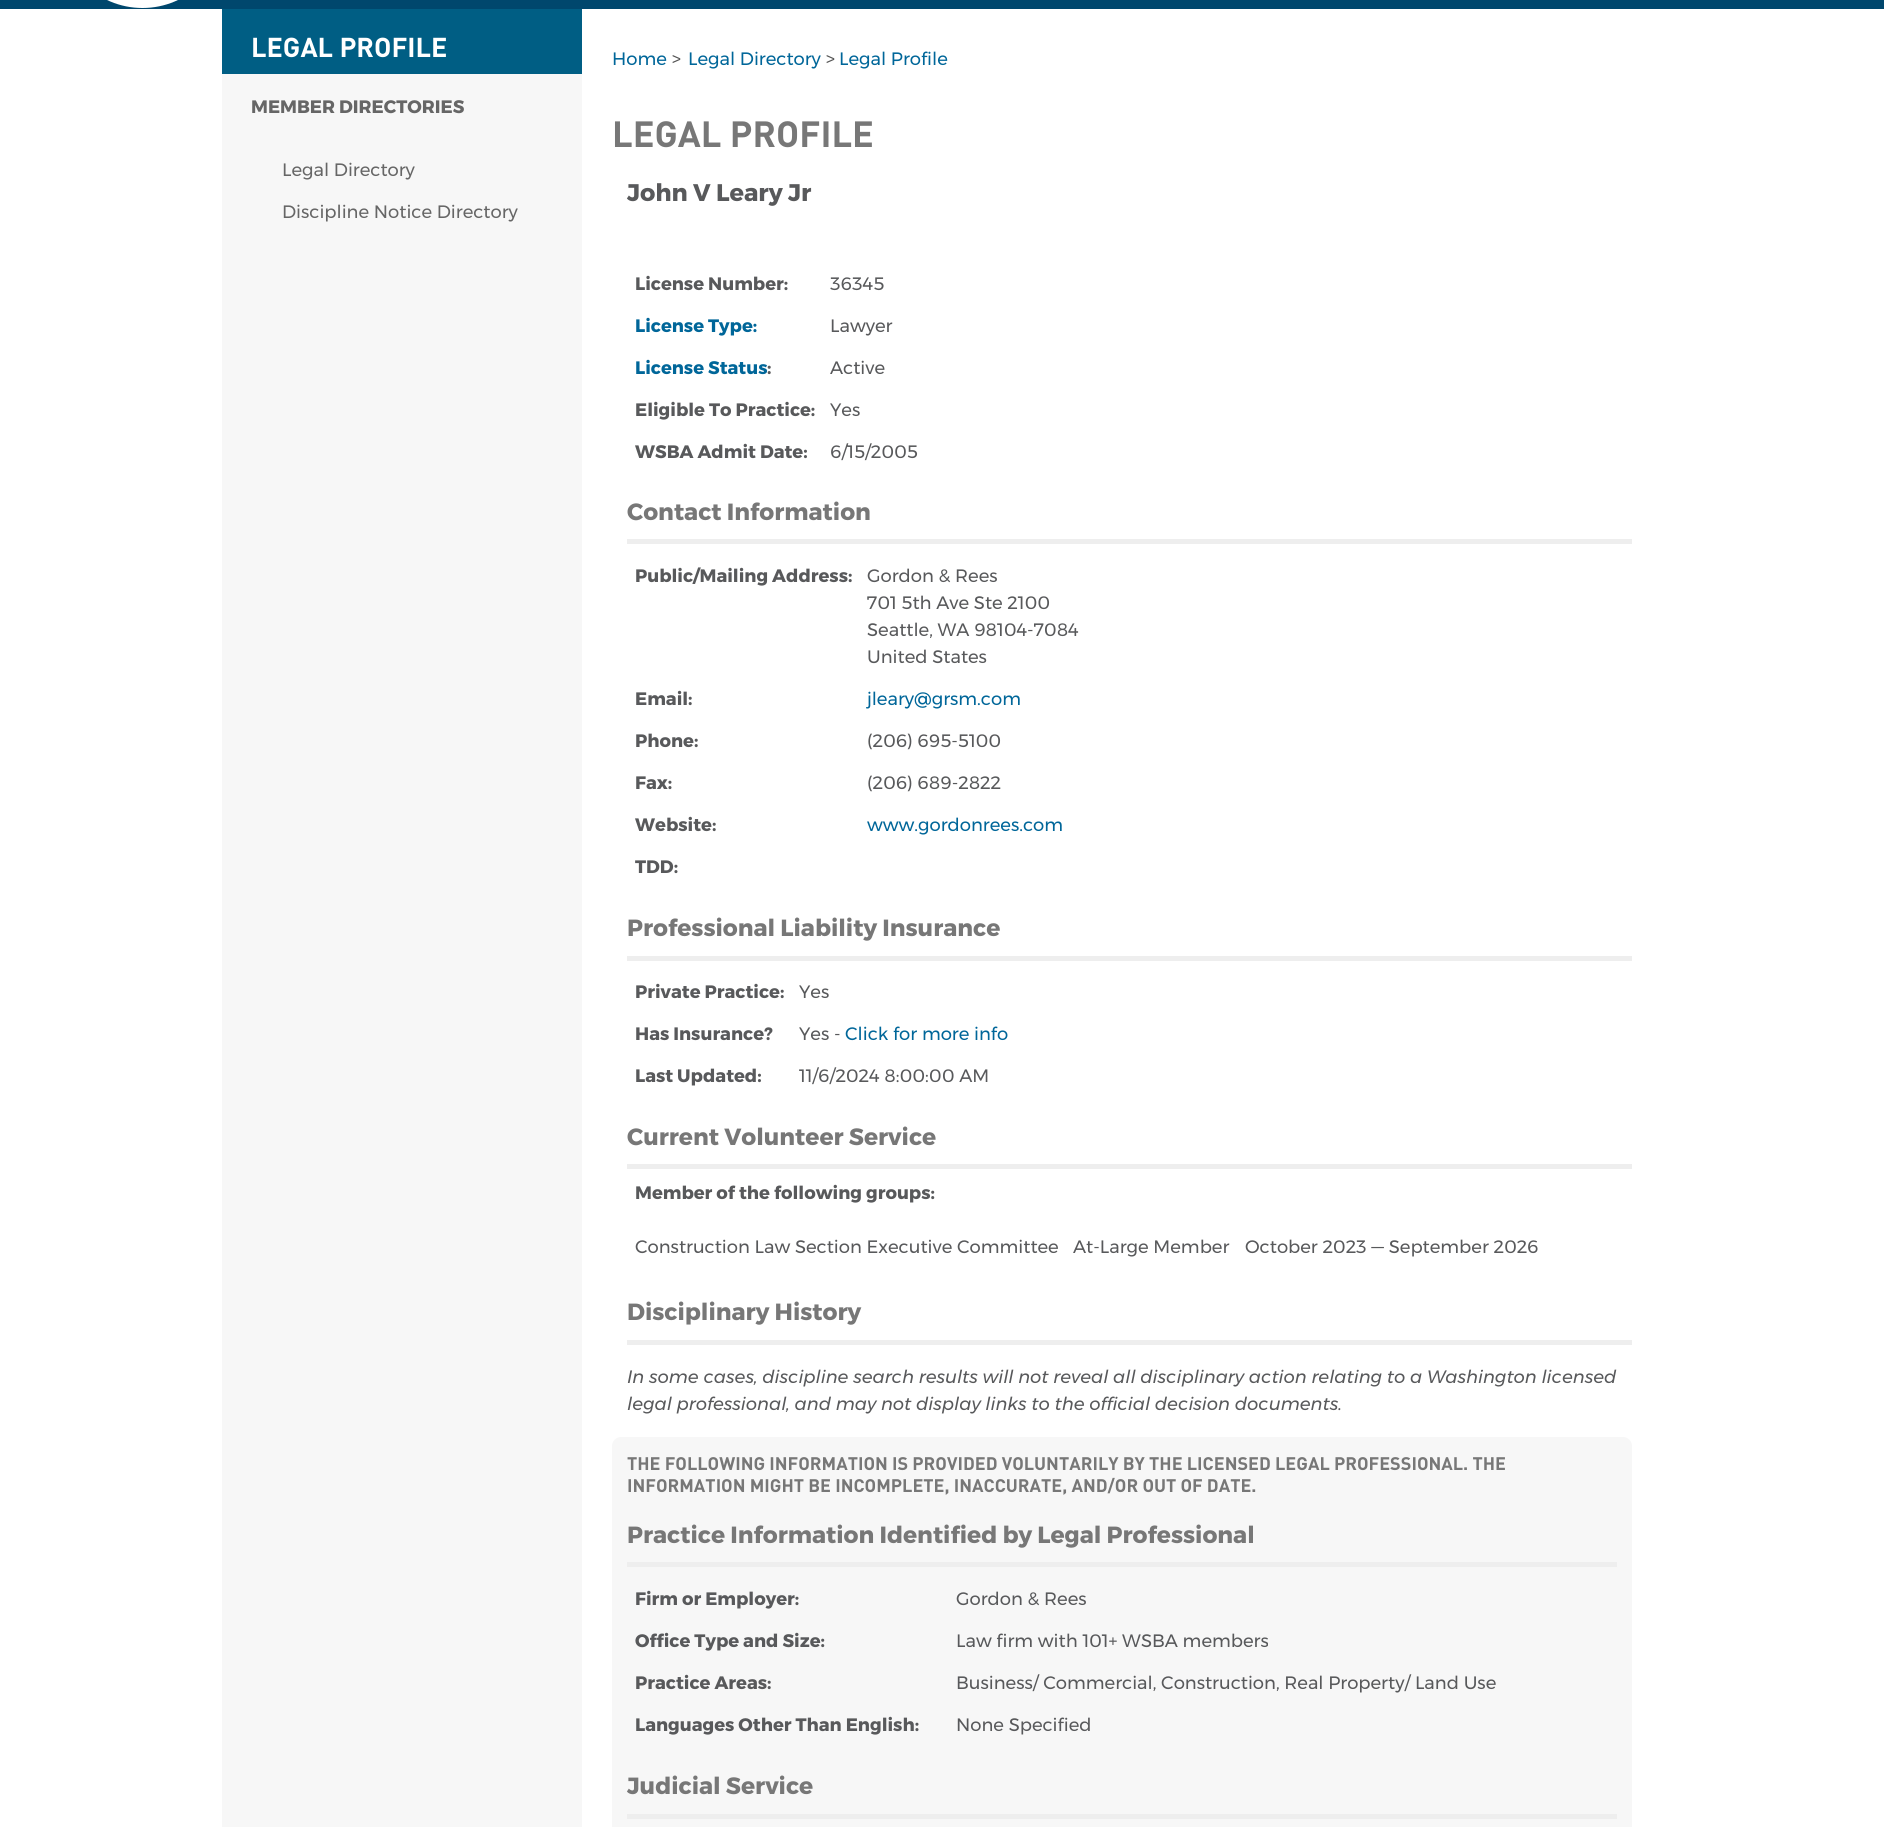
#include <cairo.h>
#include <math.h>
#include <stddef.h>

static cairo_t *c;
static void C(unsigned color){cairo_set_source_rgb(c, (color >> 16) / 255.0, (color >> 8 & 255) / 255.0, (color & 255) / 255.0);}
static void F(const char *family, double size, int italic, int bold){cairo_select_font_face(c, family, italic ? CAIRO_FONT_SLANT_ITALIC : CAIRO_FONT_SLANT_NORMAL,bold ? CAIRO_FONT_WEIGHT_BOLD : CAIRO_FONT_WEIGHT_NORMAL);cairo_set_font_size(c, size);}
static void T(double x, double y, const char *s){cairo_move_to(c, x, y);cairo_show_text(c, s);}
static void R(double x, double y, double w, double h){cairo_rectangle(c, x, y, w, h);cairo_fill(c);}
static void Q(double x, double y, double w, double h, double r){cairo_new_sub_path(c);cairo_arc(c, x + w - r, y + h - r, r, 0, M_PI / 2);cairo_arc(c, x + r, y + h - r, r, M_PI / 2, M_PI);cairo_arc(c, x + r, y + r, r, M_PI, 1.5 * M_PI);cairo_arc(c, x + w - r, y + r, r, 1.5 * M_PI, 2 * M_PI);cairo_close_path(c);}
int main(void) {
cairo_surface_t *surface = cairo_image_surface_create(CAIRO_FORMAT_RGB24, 1884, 1827);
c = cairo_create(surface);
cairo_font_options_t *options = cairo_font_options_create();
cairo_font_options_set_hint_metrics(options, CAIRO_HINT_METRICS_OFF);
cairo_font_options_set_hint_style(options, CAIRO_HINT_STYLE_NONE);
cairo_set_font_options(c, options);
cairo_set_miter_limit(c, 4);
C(0xffffff);
cairo_paint(c);
C(0x00476d);
R(0,0,1884,9);
C(0xffffff);
Q(60,-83,165,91,82.5);
cairo_fill(c);
C(0xf7f7f7);
R(222,74,360,1753);
C(0x005e84);
R(222,9,360,65);
F("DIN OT",27,0,1);
C(0xffffff);
T(251,57,"LEGAL PROFILE");
F("Montserrat",18,0,1);
C(0x666666);
T(251,113,"MEMBER DIRECTORIES");
F("Montserrat",18,0,0);
T(282,176,"Legal Directory");
T(282,218,"Discipline Notice Directory");
C(0x006699);
T(612,65,"Home");
C(0x555555);
T(672,65,">");
C(0x006699);
T(688,65,"Legal Directory");
C(0x555555);
T(826,65,">");
C(0x006699);
T(839,65,"Legal Profile");
F("DIN OT",36,0,1);
C(0x777777);
T(612,147,"LEGAL PROFILE");
F("Montserrat",24,0,1);
C(0x58595b);
T(627,201,"John V Leary Jr");
F("Montserrat",18,0,1);
T(635,290,"License Number:");
F("Montserrat",18,0,0);
T(830,290,"36345");
F("Montserrat",18,0,1);
C(0x006699);
T(635,332,"License Type:");
F("Montserrat",18,0,0);
C(0x58595b);
T(830,332,"Lawyer");
F("Montserrat",18,0,1);
C(0x006699);
T(635,374,"License Status");
C(0x58595b);
T(767,374,":");
F("Montserrat",18,0,0);
T(830,374,"Active");
F("Montserrat",18,0,1);
T(635,416,"Eligible To Practice:");
F("Montserrat",18,0,0);
T(830,416,"Yes");
F("Montserrat",18,0,1);
T(635,458,"WSBA Admit Date:");
F("Montserrat",18,0,0);
T(830,458,"6/15/2005");
C(0xeeeeee);
R(627,539,1005,5);
F("Montserrat",23.4,0,1);
C(0x777777);
T(627,520,"Contact Information");
F("Montserrat",18,0,1);
C(0x58595b);
T(635,582,"Public/Mailing Address:");
F("Montserrat",18,0,0);
T(867,582,"Gordon & Rees");
T(867,609,"701 5th Ave Ste 2100");
T(867,636,"Seattle, WA 98104-7084");
T(867,663,"United States");
F("Montserrat",18,0,1);
T(635,705,"Email:");
F("Montserrat",18,0,0);
C(0x006699);
T(867,705,"jleary@grsm.com");
F("Montserrat",18,0,1);
C(0x58595b);
T(635,747,"Phone:");
F("Montserrat",18,0,0);
T(867,747,"(206) 695-5100");
F("Montserrat",18,0,1);
T(635,789,"Fax:");
F("Montserrat",18,0,0);
T(867,789,"(206) 689-2822");
F("Montserrat",18,0,1);
T(635,831,"Website:");
F("Montserrat",18,0,0);
C(0x006699);
T(867,831,"www.gordonrees.com");
F("Montserrat",18,0,1);
C(0x58595b);
T(635,873,"TDD:");
C(0xeeeeee);
R(627,956,1005,5);
F("Montserrat",23.4,0,1);
C(0x777777);
T(627,936,"Professional Liability Insurance");
F("Montserrat",18,0,1);
C(0x58595b);
T(635,998,"Private Practice:");
F("Montserrat",18,0,0);
T(799,998,"Yes");
F("Montserrat",18,0,1);
T(635,1040,"Has Insurance?");
F("Montserrat",18,0,0);
T(799,1040,"Yes -");
C(0x006699);
T(845,1040,"Click for more info");
F("Montserrat",18,0,1);
C(0x58595b);
T(635,1082,"Last Updated:");
F("Montserrat",18,0,0);
T(799,1082,"11/6/2024 8:00:00 AM");
C(0xeeeeee);
R(627,1164,1005,5);
F("Montserrat",23.4,0,1);
C(0x777777);
T(627,1145,"Current Volunteer Service");
F("Montserrat",18,0,1);
C(0x58595b);
T(635,1199,"Member of the following groups:");
F("Montserrat",18,0,0);
T(635,1253,"Construction Law Section Executive Committee");
T(1073,1253,"At-Large Member");
T(1245,1253,"October 2023 — September 2026");
C(0xeeeeee);
R(627,1340,1005,5);
F("Montserrat",23.4,0,1);
C(0x777777);
T(627,1320,"Disciplinary History");
F("Montserrat",18,1,0);
C(0x58595b);
T(627,1383,"In some cases, discipline search results will not reveal all disciplinary action relating to a Washington licensed");
T(627,1410,"legal professional, and may not display links to the official decision documents.");
C(0xf7f7f7);
Q(612,1437,1020,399,9);
cairo_fill(c);
F("DIN OT",18,0,1);
C(0x777777);
T(627,1470,"THE FOLLOWING INFORMATION IS PROVIDED VOLUNTARILY BY THE LICENSED LEGAL PROFESSIONAL. THE");
T(627,1492,"INFORMATION MIGHT BE INCOMPLETE, INACCURATE, AND/OR OUT OF DATE.");
C(0xeeeeee);
R(627,1562,990,5);
F("Montserrat",23.4,0,1);
C(0x777777);
T(627,1543,"Practice Information Identified by Legal Professional");
F("Montserrat",18,0,1);
C(0x58595b);
T(635,1605,"Firm or Employer:");
F("Montserrat",18,0,0);
T(956,1605,"Gordon & Rees");
F("Montserrat",18,0,1);
T(635,1647,"Office Type and Size:");
F("Montserrat",18,0,0);
T(956,1647,"Law firm with 101+ WSBA members");
F("Montserrat",18,0,1);
T(635,1689,"Practice Areas:");
F("Montserrat",18,0,0);
T(956,1689,"Business/ Commercial, Construction, Real Property/ Land Use");
F("Montserrat",18,0,1);
T(635,1731,"Languages Other Than English:");
F("Montserrat",18,0,0);
T(956,1731,"None Specified");
C(0xeeeeee);
R(627,1814,990,5);
F("Montserrat",23.4,0,1);
C(0x777777);
T(627,1794,"Judicial Service");
cairo_surface_write_to_png(surface, "o.png");
cairo_font_options_destroy(options);
cairo_destroy(c);
cairo_surface_destroy(surface);
return 0;
}
